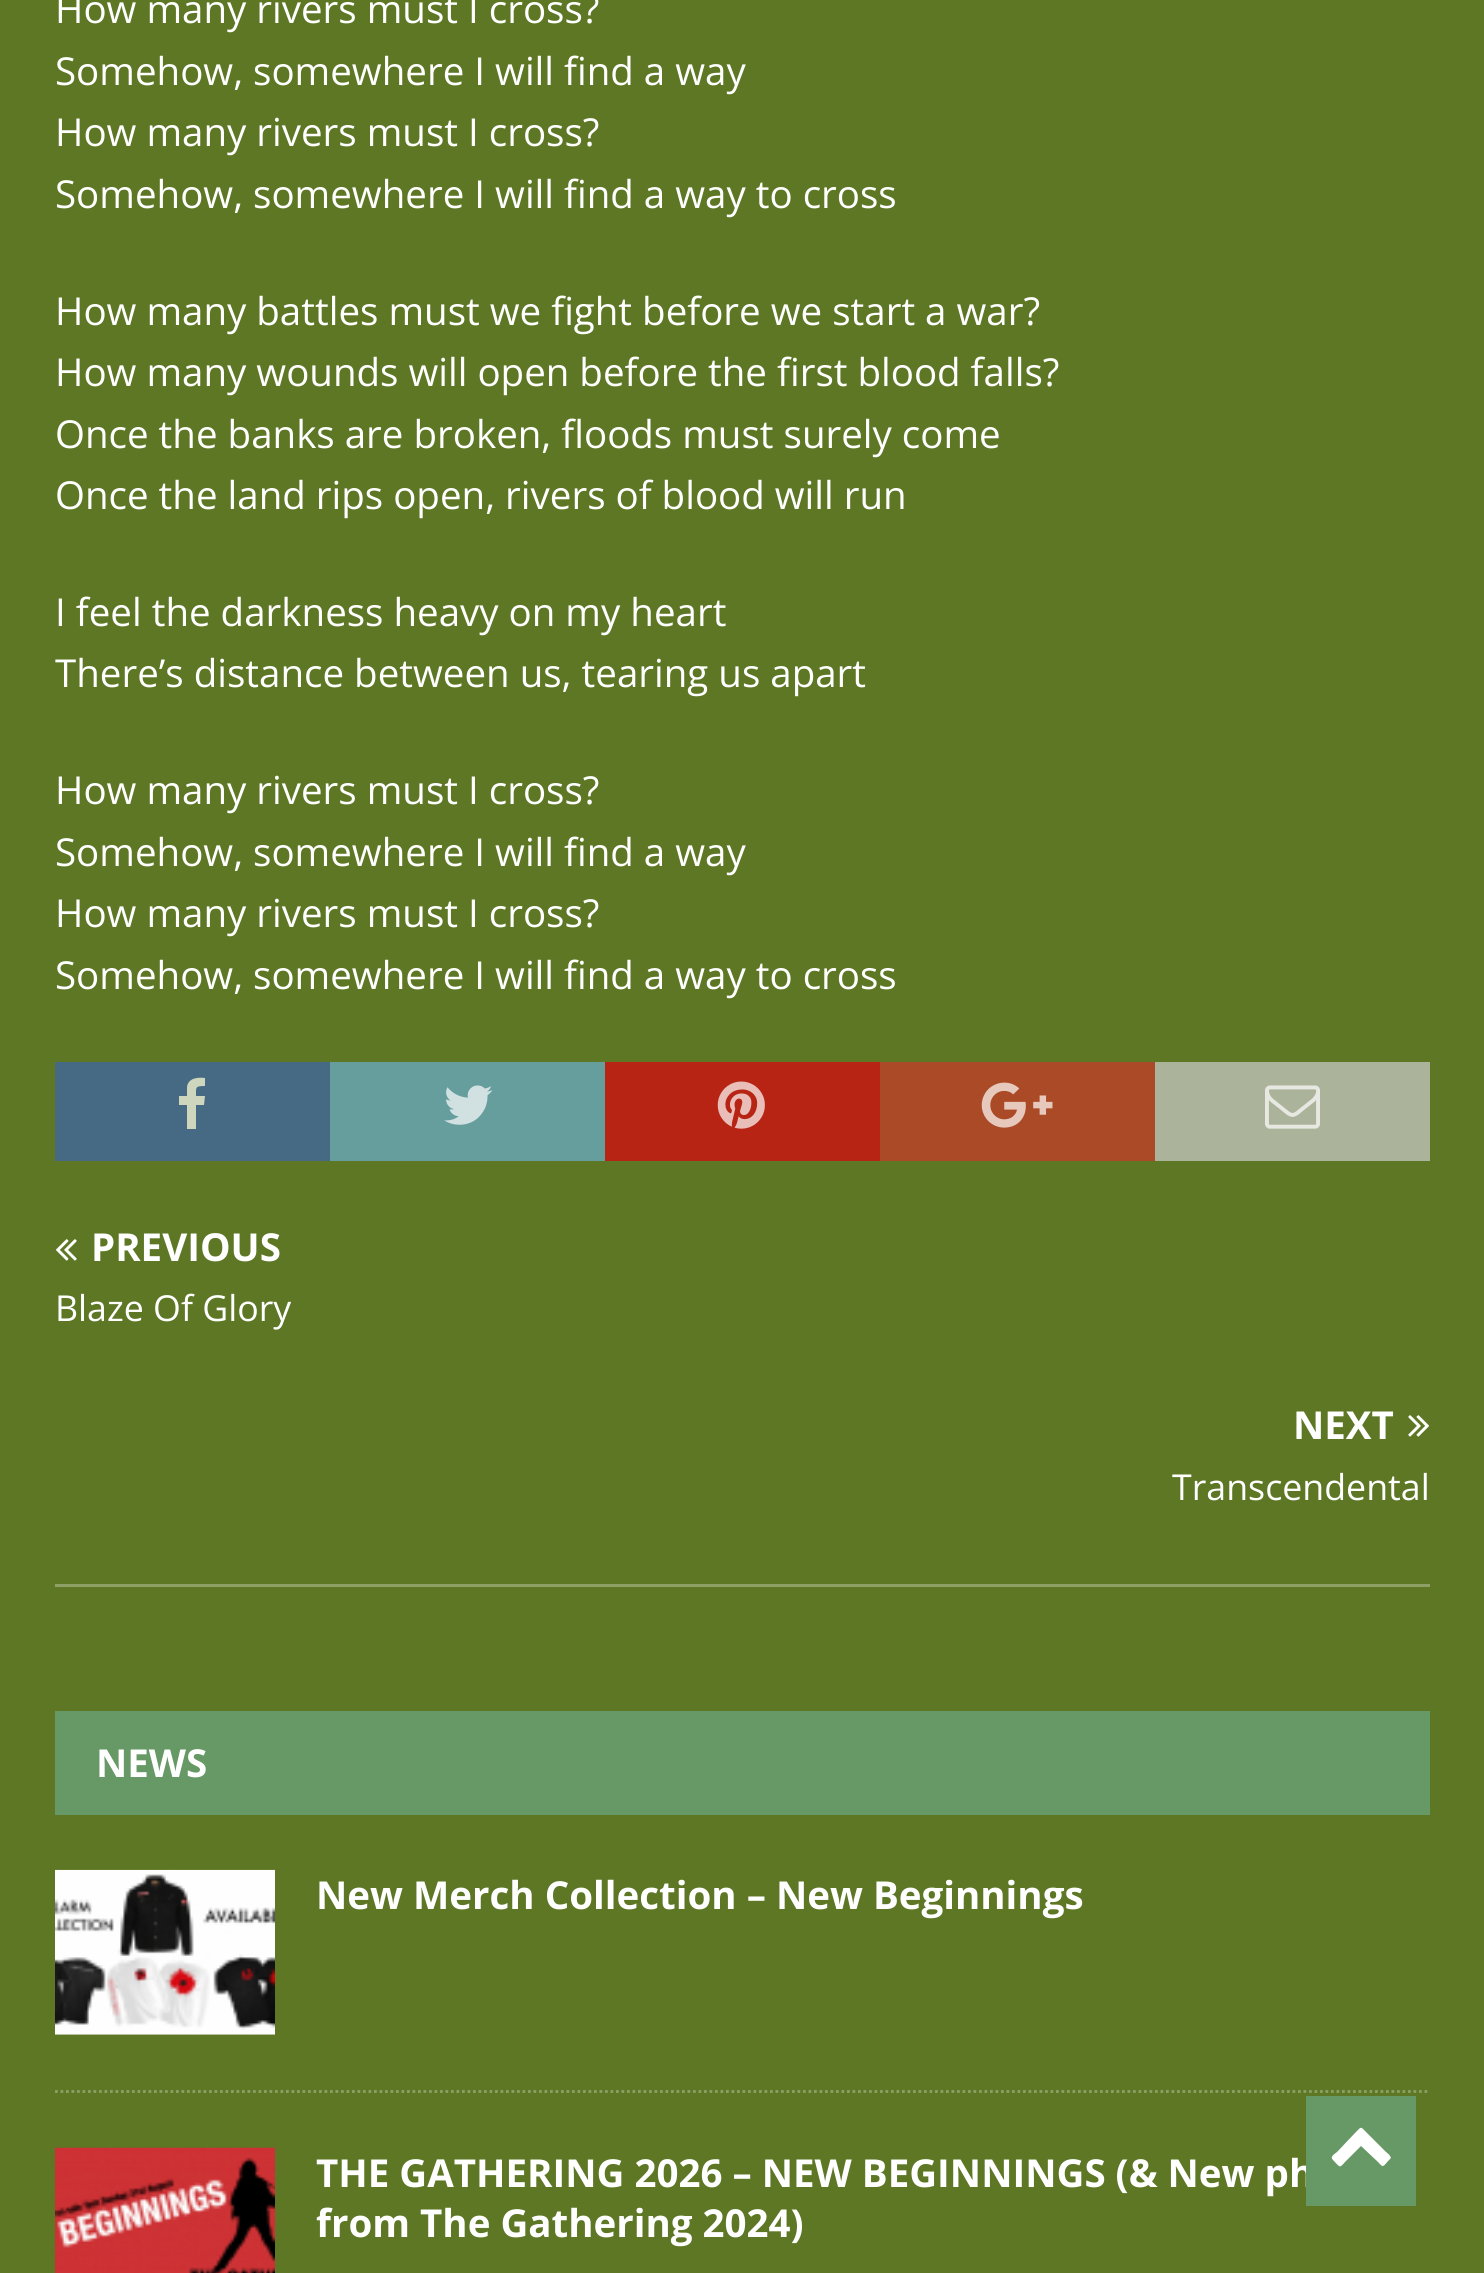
#include <cairo.h>
#include <math.h>
#include <stddef.h>

static cairo_t *c;
static void C(unsigned color){cairo_set_source_rgb(c, (color >> 16) / 255.0, (color >> 8 & 255) / 255.0, (color & 255) / 255.0);}
static void F(const char *family, double size, int italic, int bold){cairo_select_font_face(c, family, italic ? CAIRO_FONT_SLANT_ITALIC : CAIRO_FONT_SLANT_NORMAL,bold ? CAIRO_FONT_WEIGHT_BOLD : CAIRO_FONT_WEIGHT_NORMAL);cairo_set_font_size(c, size);}
static void T(double x, double y, const char *s){cairo_move_to(c, x, y);cairo_show_text(c, s);}
static void R(double x, double y, double w, double h){cairo_rectangle(c, x, y, w, h);cairo_fill(c);}
static void I(const char *path, double x, double y, double w, double h){cairo_surface_t *image = cairo_image_surface_create_from_png(path);cairo_save(c);cairo_set_source_surface(c, image, x, y);cairo_rectangle(c, x, y, w, h);cairo_fill(c);cairo_restore(c);cairo_surface_destroy(image);}
int main(void) {
cairo_surface_t *surface = cairo_image_surface_create(CAIRO_FORMAT_RGB24, 1484, 2273);
c = cairo_create(surface);
cairo_font_options_t *options = cairo_font_options_create();
cairo_font_options_set_hint_metrics(options, CAIRO_HINT_METRICS_OFF);
cairo_font_options_set_hint_style(options, CAIRO_HINT_STYLE_NONE);
cairo_set_font_options(c, options);
cairo_set_miter_limit(c, 4);
C(0x5d7725);
cairo_paint(c);
F("Open Sans",38.5,0,0);
C(0xffffff);
T(55,23,"How many rivers must I cross?");
T(55,85,"Somehow, somewhere I will find a way");
T(55,146,"How many rivers must I cross?");
T(55,208,"Somehow, somewhere I will find a way to cross");
T(55,325,"How many battles must we fight before we start a war?");
T(55,386,"How many wounds will open before the first blood falls?");
T(55,448,"Once the banks are broken, floods must surely come");
T(55,509,"Once the land rips open, rivers of blood will run");
T(55,626,"I feel the darkness heavy on my heart");
T(55,687,"There’s distance between us, tearing us apart");
T(55,804,"How many rivers must I cross?");
T(55,866,"Somehow, somewhere I will find a way");
T(55,927,"How many rivers must I cross?");
T(55,989,"Somehow, somewhere I will find a way to cross");
C(0x476a84);
R(55,1062,275,99);
C(0xced6be);
cairo_new_path(c);
cairo_move_to(c,205,1078);
cairo_line_to(c,205,1086);
cairo_curve_to(c,195,1086,196,1087,196,1096);
cairo_line_to(c,205,1096);
cairo_line_to(c,204,1105);
cairo_line_to(c,196,1105);
cairo_line_to(c,196,1129);
cairo_line_to(c,187,1129);
cairo_line_to(c,187,1105);
cairo_line_to(c,179,1105);
cairo_line_to(c,179,1096);
cairo_line_to(c,187,1096);
cairo_line_to(c,187,1087);
cairo_curve_to(c,188,1078,198,1077,205,1078);
cairo_close_path(c);
cairo_fill(c);
C(0x669d9d);
R(330,1062,275,99);
I("1.png",444,1085,49,40);
C(0xb72414);
R(605,1062,275,99);
I("2.png",717,1081,48,48);
C(0xab4a26);
R(880,1062,275,99);
I("3.png",981,1082,72,46);
C(0xabb39a);
R(1155,1062,275,99);
I("4.png",1265,1085,55,44);
C(0x8ea066);
R(55,1584,1375,3);
I("5.png",56,1239,21,22);
F("Open Sans",38.5,0,1);
C(0xffffff);
T(91,1261,"PREVIOUS");
F("Open Sans",35.75,0,0);
T(55,1321,"Blaze Of Glory");
F("Open Sans",38.5,0,1);
T(1293,1439,"NEXT");
I("6.png",1408,1415,21,22);
F("Open Sans",35.75,0,0);
T(1172,1500,"Transcendental");
C(0x669966);
R(55,1711,1375,104);
F("Open Sans",38.5,0,1);
C(0xffffff);
T(96,1777,"NEWS");
cairo_new_path(c);
cairo_move_to(c,55,2091.5);
cairo_line_to(c,1430,2091.5);
C(0x8ea066);
cairo_set_line_width(c,2.8);
cairo_set_dash(c,(double[]){2.75,2.75},2,0);
cairo_stroke(c);
I("7.png",55,1869,220,166);
C(0xffffff);
T(316,1909,"New Merch Collection – New Beginnings");
I("8.png",55,2147,220,126);
T(316,2187,"THE GATHERING 2026 – NEW BEGINNINGS (& New ph");
T(316,2237,"from The Gathering 2024)");
C(0x669966);
R(1306,2096,110,110);
C(0xffffff);
cairo_new_path(c);
cairo_move_to(c,1390,2159);
cairo_curve_to(c,1383,2166,1384,2169,1378,2162);
cairo_line_to(c,1361,2146);
cairo_line_to(c,1345,2162);
cairo_curve_to(c,1339,2169,1340,2167,1333,2160);
cairo_curve_to(c,1330,2157,1333,2155,1337,2152);
cairo_line_to(c,1355,2133);
cairo_curve_to(c,1362,2126,1360,2126,1367,2133);
cairo_line_to(c,1386,2152);
cairo_curve_to(c,1386,2152,1393,2157,1390,2159);
cairo_close_path(c);
cairo_fill(c);
cairo_surface_write_to_png(surface, "o.png");
cairo_font_options_destroy(options);
cairo_destroy(c);
cairo_surface_destroy(surface);
return 0;
}
